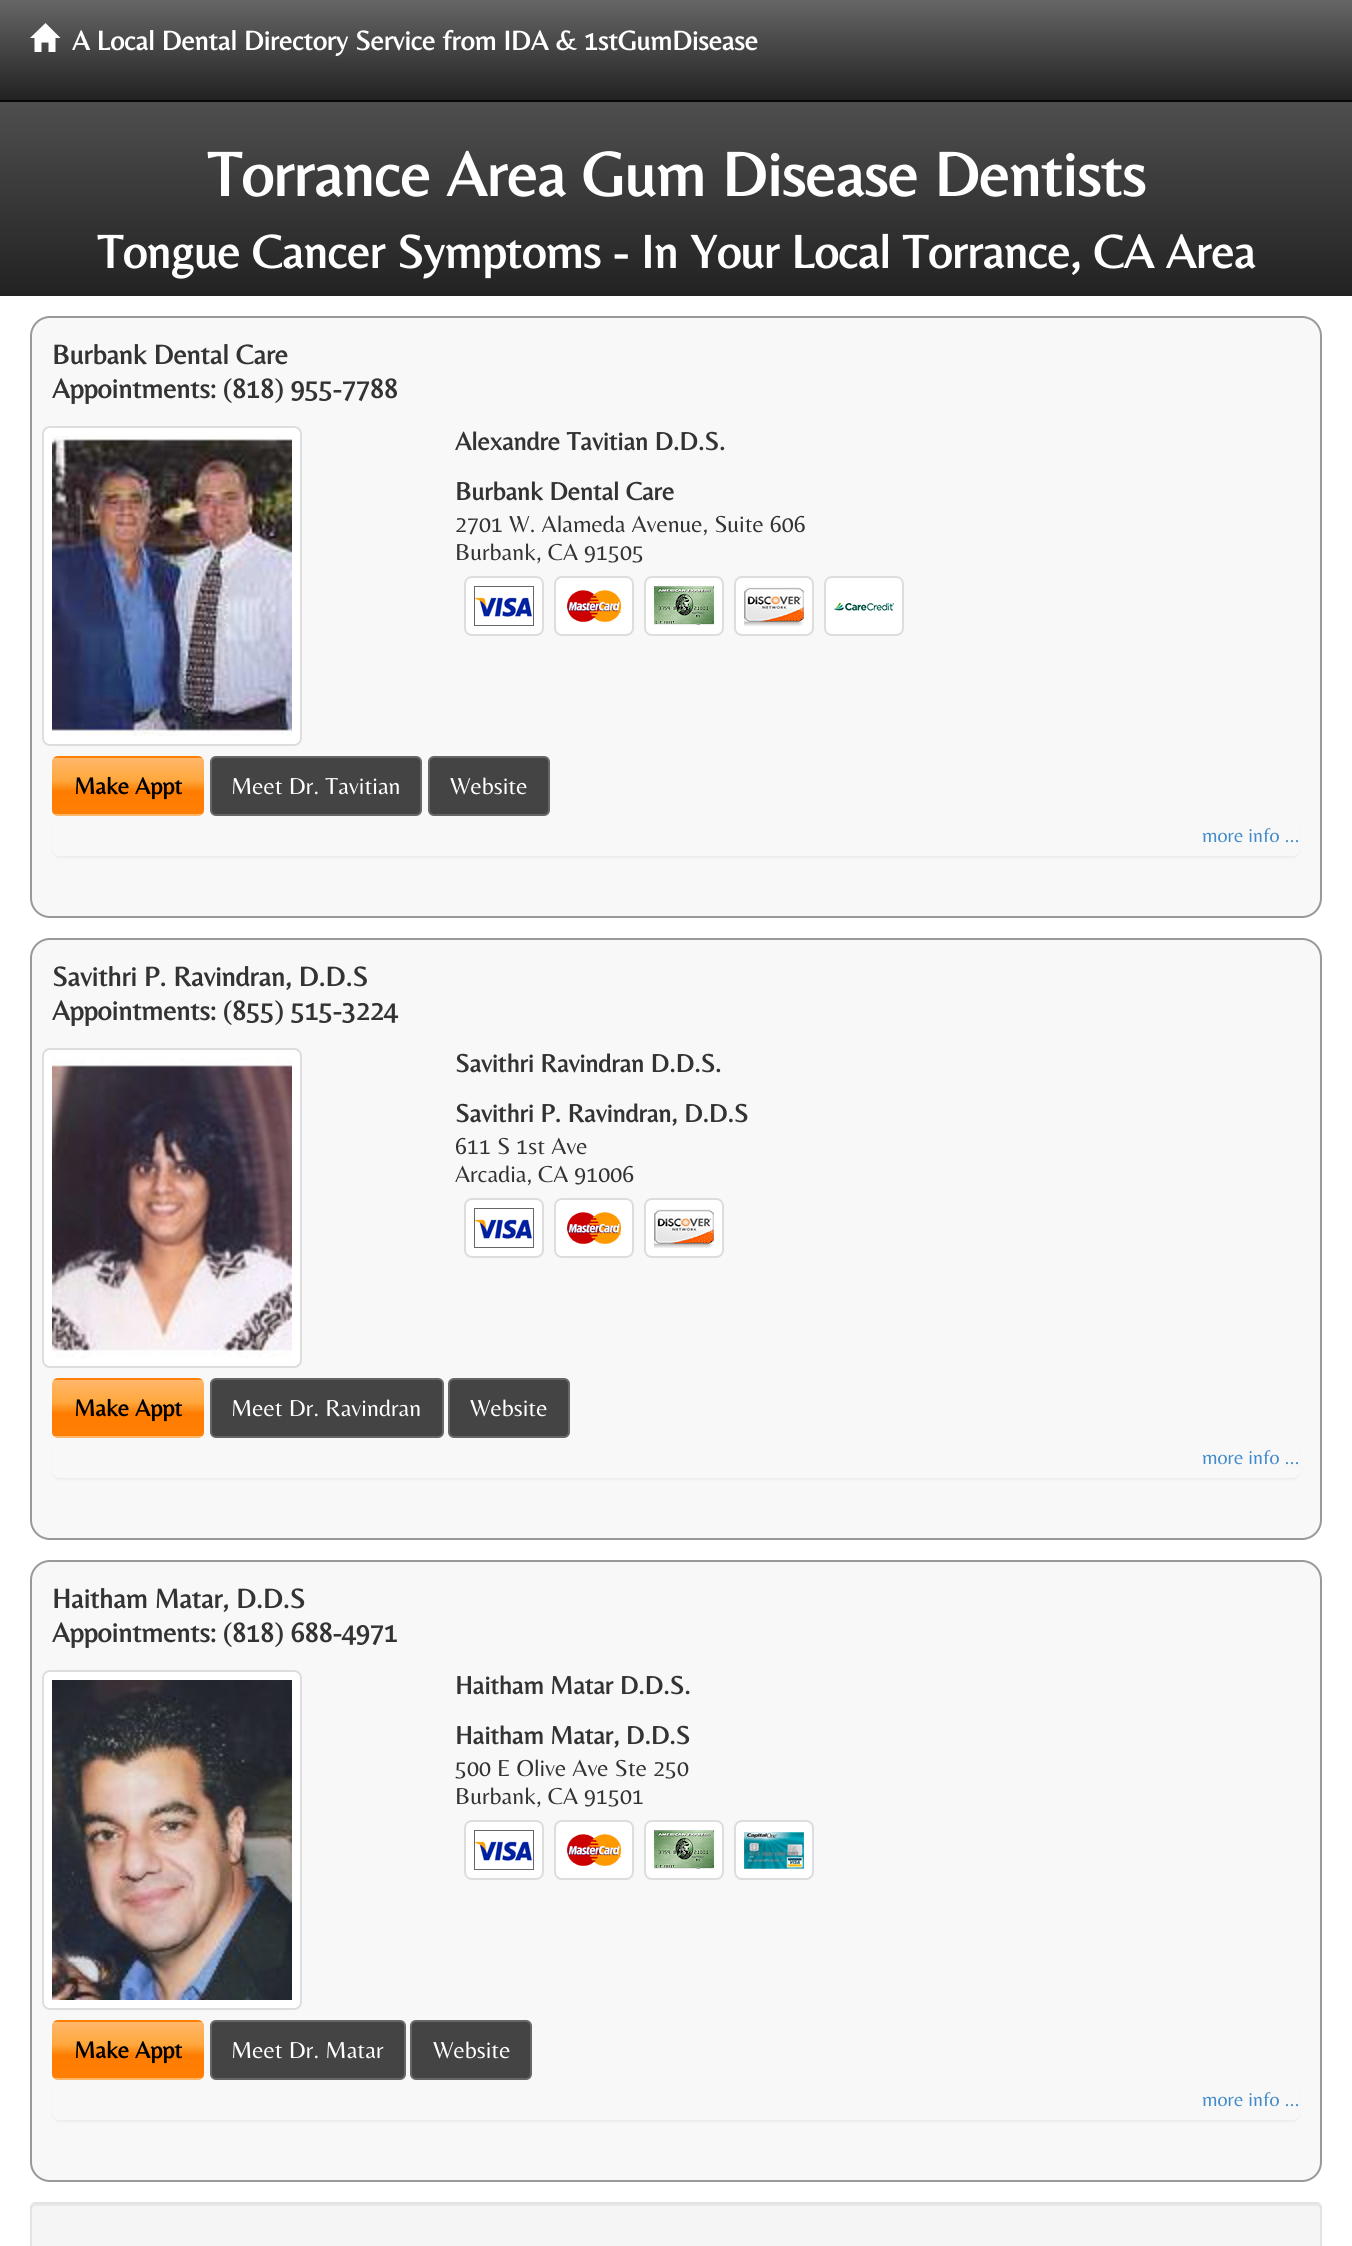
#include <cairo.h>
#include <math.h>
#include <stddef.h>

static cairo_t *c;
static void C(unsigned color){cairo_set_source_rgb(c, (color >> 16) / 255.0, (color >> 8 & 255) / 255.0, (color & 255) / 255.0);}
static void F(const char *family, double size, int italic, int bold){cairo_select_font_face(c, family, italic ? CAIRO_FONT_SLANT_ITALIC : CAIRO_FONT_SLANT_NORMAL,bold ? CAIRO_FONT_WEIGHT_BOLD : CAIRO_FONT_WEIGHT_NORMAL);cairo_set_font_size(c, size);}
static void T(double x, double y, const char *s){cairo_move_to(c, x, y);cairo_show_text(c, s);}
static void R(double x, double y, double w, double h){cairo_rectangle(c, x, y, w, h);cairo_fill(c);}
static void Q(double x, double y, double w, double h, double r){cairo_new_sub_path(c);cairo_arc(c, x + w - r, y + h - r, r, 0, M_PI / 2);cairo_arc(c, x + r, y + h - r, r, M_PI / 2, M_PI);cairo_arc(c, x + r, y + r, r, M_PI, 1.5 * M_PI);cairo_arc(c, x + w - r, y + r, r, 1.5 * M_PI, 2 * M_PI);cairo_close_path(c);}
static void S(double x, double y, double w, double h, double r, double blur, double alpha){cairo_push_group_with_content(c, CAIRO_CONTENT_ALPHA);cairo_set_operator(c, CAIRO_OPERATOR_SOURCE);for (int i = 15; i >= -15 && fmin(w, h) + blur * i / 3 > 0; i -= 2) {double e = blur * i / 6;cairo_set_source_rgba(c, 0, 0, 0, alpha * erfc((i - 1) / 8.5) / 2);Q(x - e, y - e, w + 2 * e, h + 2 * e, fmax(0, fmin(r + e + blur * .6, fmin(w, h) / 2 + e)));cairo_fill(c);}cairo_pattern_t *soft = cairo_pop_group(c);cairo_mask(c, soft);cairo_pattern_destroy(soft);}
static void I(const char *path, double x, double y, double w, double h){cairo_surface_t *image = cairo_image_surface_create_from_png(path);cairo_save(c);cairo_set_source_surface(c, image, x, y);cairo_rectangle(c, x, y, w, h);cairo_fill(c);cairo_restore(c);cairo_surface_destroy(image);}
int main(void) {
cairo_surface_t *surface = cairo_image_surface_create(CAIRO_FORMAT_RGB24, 1352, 2246);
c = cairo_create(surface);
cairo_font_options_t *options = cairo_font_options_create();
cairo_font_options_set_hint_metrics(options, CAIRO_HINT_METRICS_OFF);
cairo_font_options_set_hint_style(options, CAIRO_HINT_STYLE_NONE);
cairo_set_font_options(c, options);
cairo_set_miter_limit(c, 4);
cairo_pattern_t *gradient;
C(0xffffff);
cairo_paint(c);
gradient = cairo_pattern_create_linear(676,0,676,100);
cairo_pattern_add_color_stop_rgba(gradient,0,0.4,0.4,0.4,1);
cairo_pattern_add_color_stop_rgba(gradient,1,0.133,0.133,0.133,1);
cairo_set_source(c,gradient);
cairo_pattern_destroy(gradient);
R(0,0,1352,100);
C(0x080808);
R(0,100,1352,2);
C(0xffffff);
cairo_new_path(c);
cairo_move_to(c,30,38);
cairo_line_to(c,45.5,23);
cairo_line_to(c,60.5,38);
cairo_line_to(c,55.5,38);
cairo_line_to(c,55.5,52);
cairo_line_to(c,48.5,52);
cairo_line_to(c,48.5,42.5);
cairo_line_to(c,41.5,42.5);
cairo_line_to(c,41.5,52);
cairo_line_to(c,34.5,52);
cairo_line_to(c,34.5,38);
cairo_close_path(c);
cairo_fill(c);
F("Belleza",28,0,1);
T(72,50,"A Local Dental Directory Service from IDA & 1stGumDisease");
gradient = cairo_pattern_create_linear(676,0,676,296);
cairo_pattern_add_color_stop_rgba(gradient,0,0.4,0.4,0.4,1);
cairo_pattern_add_color_stop_rgba(gradient,1,0.133,0.133,0.133,1);
cairo_set_source(c,gradient);
cairo_pattern_destroy(gradient);
R(0,102,1352,194);
F("Belleza",64,0,1);
C(0xffffff);
T(207,196,"Torrance Area Gum Disease Dentists");
F("Belleza",48,0,1);
T(97,268,"Tongue Cancer Symptoms - In Your Local Torrance, CA Area");
C(0xf9f8f8);
Q(31,317,1290,600,19);
cairo_fill_preserve(c);
C(0x999999);
cairo_stroke(c);
F("Belleza",28,0,1);
C(0x333333);
T(52,364,"Burbank Dental Care");
T(52,398,"Appointments: (818) 955-7788");
C(0xffffff);
Q(43,427,258,318,7);
cairo_fill_preserve(c);
C(0xdddddd);
cairo_stroke(c);
I("1.png",52,436,240,300);
F("Belleza",26,0,1);
C(0x333333);
T(455,450,"Alexandre Tavitian D.D.S.");
T(455,500,"Burbank Dental Care");
F("Belleza",24,0,0);
T(455,532,"2701 W. Alameda Avenue, Suite 606");
T(455,560,"Burbank, CA 91505");
C(0xffffff);
Q(465,577,78,58,7);
cairo_fill_preserve(c);
C(0xdddddd);
cairo_stroke(c);
I("2.png",474,586,60,40);
C(0xffffff);
Q(555,577,78,58,7);
cairo_fill_preserve(c);
C(0xdddddd);
cairo_stroke(c);
I("3.png",567,590,54,32);
C(0xffffff);
Q(645,577,78,58,7);
cairo_fill_preserve(c);
C(0xdddddd);
cairo_stroke(c);
I("4.png",654,586,60,40);
C(0xffffff);
Q(735,577,78,58,7);
cairo_fill_preserve(c);
C(0xdddddd);
cairo_stroke(c);
I("5.png",744,587,60,39);
C(0xffffff);
Q(825,577,78,58,7);
cairo_fill_preserve(c);
C(0xdddddd);
cairo_stroke(c);
I("6.png",834,602,60,9);
cairo_save(c);
Q(52,756,152,60,6);
cairo_clip(c);
gradient = cairo_pattern_create_linear(128,702,128,758);
cairo_pattern_add_color_stop_rgba(gradient,0,1,0.718,0.42,1);
cairo_pattern_add_color_stop_rgba(gradient,.4,1,0.655,0.239,1);
cairo_pattern_add_color_stop_rgba(gradient,.6,1,0.486,0,1);
cairo_pattern_add_color_stop_rgba(gradient,1,1,0.498,0.016,1);
cairo_set_source(c,gradient);
cairo_pattern_destroy(gradient);
R(52,756,152,2);
gradient = cairo_pattern_create_linear(128,758,128,814);
cairo_pattern_add_color_stop_rgba(gradient,0,1,0.718,0.42,1);
cairo_pattern_add_color_stop_rgba(gradient,.4,1,0.655,0.239,1);
cairo_pattern_add_color_stop_rgba(gradient,.6,1,0.486,0,1);
cairo_pattern_add_color_stop_rgba(gradient,1,1,0.498,0.016,1);
cairo_set_source(c,gradient);
cairo_pattern_destroy(gradient);
R(52,758,152,56);
gradient = cairo_pattern_create_linear(128,814,128,870);
cairo_pattern_add_color_stop_rgba(gradient,0,1,0.718,0.42,1);
cairo_pattern_add_color_stop_rgba(gradient,.4,1,0.655,0.239,1);
cairo_pattern_add_color_stop_rgba(gradient,.6,1,0.486,0,1);
cairo_pattern_add_color_stop_rgba(gradient,1,1,0.498,0.016,1);
cairo_set_source(c,gradient);
cairo_pattern_destroy(gradient);
R(52,814,152,2);
cairo_restore(c);
F("Belleza",24,0,1);
C(0x000000);
T(74,794,"Make Appt");
C(0x444444);
Q(211,757,210,58,5);
cairo_fill_preserve(c);
C(0x666666);
cairo_stroke(c);
F("Belleza",24,0,0);
C(0xffffff);
T(231,794,"Meet Dr. Tavitian");
C(0x444444);
Q(429,757,120,58,5);
cairo_fill_preserve(c);
C(0x666666);
cairo_stroke(c);
C(0xffffff);
T(450,794,"Website");
cairo_save(c);
cairo_set_fill_rule(c,CAIRO_FILL_RULE_EVEN_ODD);
cairo_new_path(c);
cairo_move_to(c,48,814);
cairo_line_to(c,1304,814);
cairo_line_to(c,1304,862);
cairo_line_to(c,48,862);
cairo_close_path(c);
cairo_move_to(c,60,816);
cairo_line_to(c,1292,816);
cairo_curve_to(c,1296.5,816,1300,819.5,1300,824);
cairo_line_to(c,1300,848);
cairo_curve_to(c,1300,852.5,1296.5,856,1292,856);
cairo_line_to(c,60,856);
cairo_curve_to(c,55.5,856,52,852.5,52,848);
cairo_line_to(c,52,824);
cairo_curve_to(c,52,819.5,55.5,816,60,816);
cairo_close_path(c);
cairo_clip(c);
C(0x000000);
S(52,818,1248,40,8,1,.05);
cairo_restore(c);
F("Belleza",20,0,0);
C(0x428bca);
T(1202,842,"more info ...");
C(0xf9f8f8);
Q(31,939,1290,600,19);
cairo_fill_preserve(c);
C(0x999999);
cairo_stroke(c);
F("Belleza",28,0,1);
C(0x333333);
T(52,986,"Savithri P. Ravindran, D.D.S");
T(52,1020,"Appointments: (855) 515-3224");
C(0xffffff);
Q(43,1049,258,318,7);
cairo_fill_preserve(c);
C(0xdddddd);
cairo_stroke(c);
I("7.png",52,1058,240,300);
F("Belleza",26,0,1);
C(0x333333);
T(455,1072,"Savithri Ravindran D.D.S.");
T(455,1122,"Savithri P. Ravindran, D.D.S");
F("Belleza",24,0,0);
T(455,1154,"611 S 1st Ave");
T(455,1182,"Arcadia, CA 91006");
C(0xffffff);
Q(465,1199,78,58,7);
cairo_fill_preserve(c);
C(0xdddddd);
cairo_stroke(c);
I("2.png",474,1208,60,40);
C(0xffffff);
Q(555,1199,78,58,7);
cairo_fill_preserve(c);
C(0xdddddd);
cairo_stroke(c);
I("3.png",567,1212,54,32);
C(0xffffff);
Q(645,1199,78,58,7);
cairo_fill_preserve(c);
C(0xdddddd);
cairo_stroke(c);
I("5.png",654,1209,60,39);
cairo_save(c);
Q(52,1378,152,60,6);
cairo_clip(c);
gradient = cairo_pattern_create_linear(128,1324,128,1380);
cairo_pattern_add_color_stop_rgba(gradient,0,1,0.718,0.42,1);
cairo_pattern_add_color_stop_rgba(gradient,.4,1,0.655,0.239,1);
cairo_pattern_add_color_stop_rgba(gradient,.6,1,0.486,0,1);
cairo_pattern_add_color_stop_rgba(gradient,1,1,0.498,0.016,1);
cairo_set_source(c,gradient);
cairo_pattern_destroy(gradient);
R(52,1378,152,2);
gradient = cairo_pattern_create_linear(128,1380,128,1436);
cairo_pattern_add_color_stop_rgba(gradient,0,1,0.718,0.42,1);
cairo_pattern_add_color_stop_rgba(gradient,.4,1,0.655,0.239,1);
cairo_pattern_add_color_stop_rgba(gradient,.6,1,0.486,0,1);
cairo_pattern_add_color_stop_rgba(gradient,1,1,0.498,0.016,1);
cairo_set_source(c,gradient);
cairo_pattern_destroy(gradient);
R(52,1380,152,56);
gradient = cairo_pattern_create_linear(128,1436,128,1492);
cairo_pattern_add_color_stop_rgba(gradient,0,1,0.718,0.42,1);
cairo_pattern_add_color_stop_rgba(gradient,.4,1,0.655,0.239,1);
cairo_pattern_add_color_stop_rgba(gradient,.6,1,0.486,0,1);
cairo_pattern_add_color_stop_rgba(gradient,1,1,0.498,0.016,1);
cairo_set_source(c,gradient);
cairo_pattern_destroy(gradient);
R(52,1436,152,2);
cairo_restore(c);
F("Belleza",24,0,1);
C(0x000000);
T(74,1416,"Make Appt");
C(0x444444);
Q(211,1379,232,58,5);
cairo_fill_preserve(c);
C(0x666666);
cairo_stroke(c);
F("Belleza",24,0,0);
C(0xffffff);
T(231,1416,"Meet Dr. Ravindran");
C(0x444444);
Q(449,1379,120,58,5);
cairo_fill_preserve(c);
C(0x666666);
cairo_stroke(c);
C(0xffffff);
T(470,1416,"Website");
cairo_save(c);
cairo_set_fill_rule(c,CAIRO_FILL_RULE_EVEN_ODD);
cairo_new_path(c);
cairo_move_to(c,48,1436);
cairo_line_to(c,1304,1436);
cairo_line_to(c,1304,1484);
cairo_line_to(c,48,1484);
cairo_close_path(c);
cairo_move_to(c,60,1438);
cairo_line_to(c,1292,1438);
cairo_curve_to(c,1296.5,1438,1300,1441.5,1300,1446);
cairo_line_to(c,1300,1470);
cairo_curve_to(c,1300,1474.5,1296.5,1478,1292,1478);
cairo_line_to(c,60,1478);
cairo_curve_to(c,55.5,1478,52,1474.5,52,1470);
cairo_line_to(c,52,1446);
cairo_curve_to(c,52,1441.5,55.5,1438,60,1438);
cairo_close_path(c);
cairo_clip(c);
C(0x000000);
S(52,1440,1248,40,8,1,.05);
cairo_restore(c);
F("Belleza",20,0,0);
C(0x428bca);
T(1202,1464,"more info ...");
C(0xf9f8f8);
Q(31,1561,1290,620,19);
cairo_fill_preserve(c);
C(0x999999);
cairo_stroke(c);
F("Belleza",28,0,1);
C(0x333333);
T(52,1608,"Haitham Matar, D.D.S");
T(52,1642,"Appointments: (818) 688-4971");
C(0xffffff);
Q(43,1671,258,338,7);
cairo_fill_preserve(c);
C(0xdddddd);
cairo_stroke(c);
I("8.png",52,1680,240,320);
F("Belleza",26,0,1);
C(0x333333);
T(455,1694,"Haitham Matar D.D.S.");
T(455,1744,"Haitham Matar, D.D.S");
F("Belleza",24,0,0);
T(455,1776,"500 E Olive Ave Ste 250");
T(455,1804,"Burbank, CA 91501");
C(0xffffff);
Q(465,1821,78,58,7);
cairo_fill_preserve(c);
C(0xdddddd);
cairo_stroke(c);
I("2.png",474,1830,60,40);
C(0xffffff);
Q(555,1821,78,58,7);
cairo_fill_preserve(c);
C(0xdddddd);
cairo_stroke(c);
I("3.png",567,1834,54,32);
C(0xffffff);
Q(645,1821,78,58,7);
cairo_fill_preserve(c);
C(0xdddddd);
cairo_stroke(c);
I("4.png",654,1830,60,40);
C(0xffffff);
Q(735,1821,78,58,7);
cairo_fill_preserve(c);
C(0xdddddd);
cairo_stroke(c);
I("9.png",744,1832,60,37);
cairo_save(c);
Q(52,2020,152,60,6);
cairo_clip(c);
gradient = cairo_pattern_create_linear(128,1966,128,2022);
cairo_pattern_add_color_stop_rgba(gradient,0,1,0.718,0.42,1);
cairo_pattern_add_color_stop_rgba(gradient,.4,1,0.655,0.239,1);
cairo_pattern_add_color_stop_rgba(gradient,.6,1,0.486,0,1);
cairo_pattern_add_color_stop_rgba(gradient,1,1,0.498,0.016,1);
cairo_set_source(c,gradient);
cairo_pattern_destroy(gradient);
R(52,2020,152,2);
gradient = cairo_pattern_create_linear(128,2022,128,2078);
cairo_pattern_add_color_stop_rgba(gradient,0,1,0.718,0.42,1);
cairo_pattern_add_color_stop_rgba(gradient,.4,1,0.655,0.239,1);
cairo_pattern_add_color_stop_rgba(gradient,.6,1,0.486,0,1);
cairo_pattern_add_color_stop_rgba(gradient,1,1,0.498,0.016,1);
cairo_set_source(c,gradient);
cairo_pattern_destroy(gradient);
R(52,2022,152,56);
gradient = cairo_pattern_create_linear(128,2078,128,2134);
cairo_pattern_add_color_stop_rgba(gradient,0,1,0.718,0.42,1);
cairo_pattern_add_color_stop_rgba(gradient,.4,1,0.655,0.239,1);
cairo_pattern_add_color_stop_rgba(gradient,.6,1,0.486,0,1);
cairo_pattern_add_color_stop_rgba(gradient,1,1,0.498,0.016,1);
cairo_set_source(c,gradient);
cairo_pattern_destroy(gradient);
R(52,2078,152,2);
cairo_restore(c);
F("Belleza",24,0,1);
C(0x000000);
T(74,2058,"Make Appt");
C(0x444444);
Q(211,2021,194,58,5);
cairo_fill_preserve(c);
C(0x666666);
cairo_stroke(c);
F("Belleza",24,0,0);
C(0xffffff);
T(231,2058,"Meet Dr. Matar");
C(0x444444);
Q(411,2021,120,58,5);
cairo_fill_preserve(c);
C(0x666666);
cairo_stroke(c);
C(0xffffff);
T(433,2058,"Website");
cairo_save(c);
cairo_set_fill_rule(c,CAIRO_FILL_RULE_EVEN_ODD);
cairo_new_path(c);
cairo_move_to(c,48,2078);
cairo_line_to(c,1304,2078);
cairo_line_to(c,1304,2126);
cairo_line_to(c,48,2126);
cairo_close_path(c);
cairo_move_to(c,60,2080);
cairo_line_to(c,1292,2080);
cairo_curve_to(c,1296.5,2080,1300,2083.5,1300,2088);
cairo_line_to(c,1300,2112);
cairo_curve_to(c,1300,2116.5,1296.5,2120,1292,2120);
cairo_line_to(c,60,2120);
cairo_curve_to(c,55.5,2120,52,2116.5,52,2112);
cairo_line_to(c,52,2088);
cairo_curve_to(c,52,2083.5,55.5,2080,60,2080);
cairo_close_path(c);
cairo_clip(c);
C(0x000000);
S(52,2082,1248,40,8,1,.05);
cairo_restore(c);
F("Belleza",20,0,0);
C(0x428bca);
T(1202,2106,"more info ...");
C(0xf5f5f5);
Q(30,2202,1292,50,6);
cairo_fill(c);
C(0xe9e9e9);
cairo_new_path(c);
cairo_move_to(c,36,2206);
cairo_line_to(c,1316,2206);
cairo_curve_to(c,1318,2206,1320,2208,1320,2210);
cairo_curve_to(c,1320,2207,1320,2204,1316,2204);
cairo_line_to(c,36,2204);
cairo_curve_to(c,32,2204,32,2207,32,2210);
cairo_curve_to(c,32,2208,34,2206,36,2206);
cairo_close_path(c);
cairo_fill(c);
Q(31,2203,1290,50,5);
C(0xe3e3e3);
cairo_stroke(c);
cairo_surface_write_to_png(surface, "o.png");
cairo_font_options_destroy(options);
cairo_destroy(c);
cairo_surface_destroy(surface);
return 0;
}
